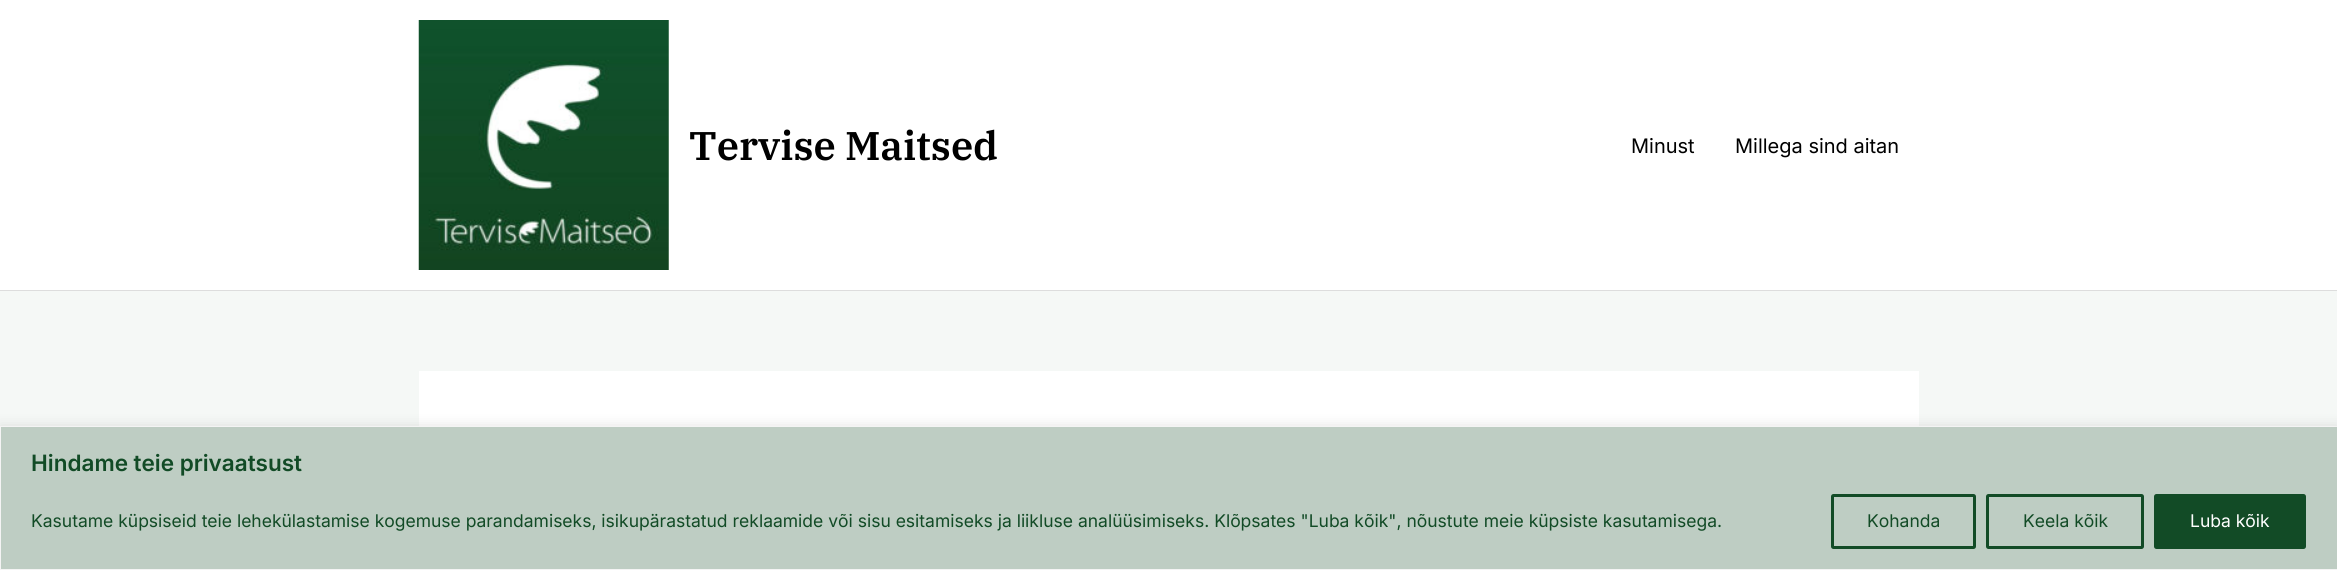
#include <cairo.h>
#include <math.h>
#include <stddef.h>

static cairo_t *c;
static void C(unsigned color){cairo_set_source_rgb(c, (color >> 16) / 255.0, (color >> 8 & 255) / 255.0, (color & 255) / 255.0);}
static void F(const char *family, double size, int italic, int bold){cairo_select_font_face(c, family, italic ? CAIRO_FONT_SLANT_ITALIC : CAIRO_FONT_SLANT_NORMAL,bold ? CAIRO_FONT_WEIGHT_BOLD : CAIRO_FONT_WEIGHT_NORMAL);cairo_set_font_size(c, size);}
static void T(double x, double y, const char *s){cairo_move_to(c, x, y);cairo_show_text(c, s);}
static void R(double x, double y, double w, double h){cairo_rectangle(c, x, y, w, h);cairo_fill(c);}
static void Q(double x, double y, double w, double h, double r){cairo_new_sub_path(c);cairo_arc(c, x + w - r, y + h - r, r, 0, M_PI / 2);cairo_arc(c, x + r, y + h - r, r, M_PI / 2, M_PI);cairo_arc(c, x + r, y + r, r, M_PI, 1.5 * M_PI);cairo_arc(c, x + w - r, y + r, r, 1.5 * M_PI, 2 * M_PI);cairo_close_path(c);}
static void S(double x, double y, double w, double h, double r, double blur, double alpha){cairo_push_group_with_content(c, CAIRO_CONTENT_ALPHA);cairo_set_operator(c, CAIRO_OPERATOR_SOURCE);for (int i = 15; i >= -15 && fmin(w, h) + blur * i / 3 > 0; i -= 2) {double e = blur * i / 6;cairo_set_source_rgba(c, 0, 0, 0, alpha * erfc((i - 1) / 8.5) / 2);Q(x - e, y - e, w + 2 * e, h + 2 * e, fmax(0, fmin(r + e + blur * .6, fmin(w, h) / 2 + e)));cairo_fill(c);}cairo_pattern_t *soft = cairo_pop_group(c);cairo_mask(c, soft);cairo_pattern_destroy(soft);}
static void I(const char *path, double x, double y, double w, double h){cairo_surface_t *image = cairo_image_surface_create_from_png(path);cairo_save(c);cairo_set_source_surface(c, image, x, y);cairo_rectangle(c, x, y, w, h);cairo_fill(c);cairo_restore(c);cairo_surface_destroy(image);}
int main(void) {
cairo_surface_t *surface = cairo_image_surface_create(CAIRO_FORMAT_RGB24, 2337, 570);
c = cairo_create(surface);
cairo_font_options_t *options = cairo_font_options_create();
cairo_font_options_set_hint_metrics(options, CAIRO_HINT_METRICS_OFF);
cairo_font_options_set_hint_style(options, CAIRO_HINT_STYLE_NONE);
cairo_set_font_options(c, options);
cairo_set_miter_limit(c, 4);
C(0xf5f8f6);
cairo_paint(c);
C(0xffffff);
R(0,0,2337,290);
C(0xdddddd);
R(0,290,2337,1);
I("1.png",418,20,251,250);
F("IBM Plex Serif SemiBold",40,0,0);
C(0x000000);
T(689,160,"Tervise Maitsed");
F("Inter",20,0,0);
T(1631,153,"Minust");
T(1735,153,"Millega sind aitan");
C(0xffffff);
R(419,371,1500,55);
C(0xacabab);
S(0,425,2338,144,0,6,.3);
C(0xbecdc3);
cairo_rectangle(c,.5,426.5,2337,143);
cairo_fill_preserve(c);
C(0xf4f4f4);
cairo_set_line_width(c,1);
cairo_stroke(c);
F("Inter SemiBold",22.5,0,0);
C(0x124b26);
T(31,471,"Hindame teie privaatsust");
F("Inter",17.5,0,0);
T(31,527,"Kasutame küpsiseid teie lehekülastamise kogemuse parandamiseks, isikupärastatud reklaamide või sisu esitamiseks ja liikluse analüüsimiseks. Klõpsates \"Luba kõik\", nõustute meie küpsiste kasutamisega.");
Q(1832.5,495.5,142,52,1);
cairo_set_line_width(c,3);
cairo_stroke(c);
T(1867,527,"Kohanda");
Q(1987.5,495.5,155,52,1);
cairo_stroke(c);
T(2023,527,"Keela kõik");
Q(2155.5,495.5,149,52,1);
cairo_fill_preserve(c);
cairo_stroke(c);
C(0xffffff);
T(2190,527,"Luba kõik");
cairo_surface_write_to_png(surface, "o.png");
cairo_font_options_destroy(options);
cairo_destroy(c);
cairo_surface_destroy(surface);
return 0;
}
